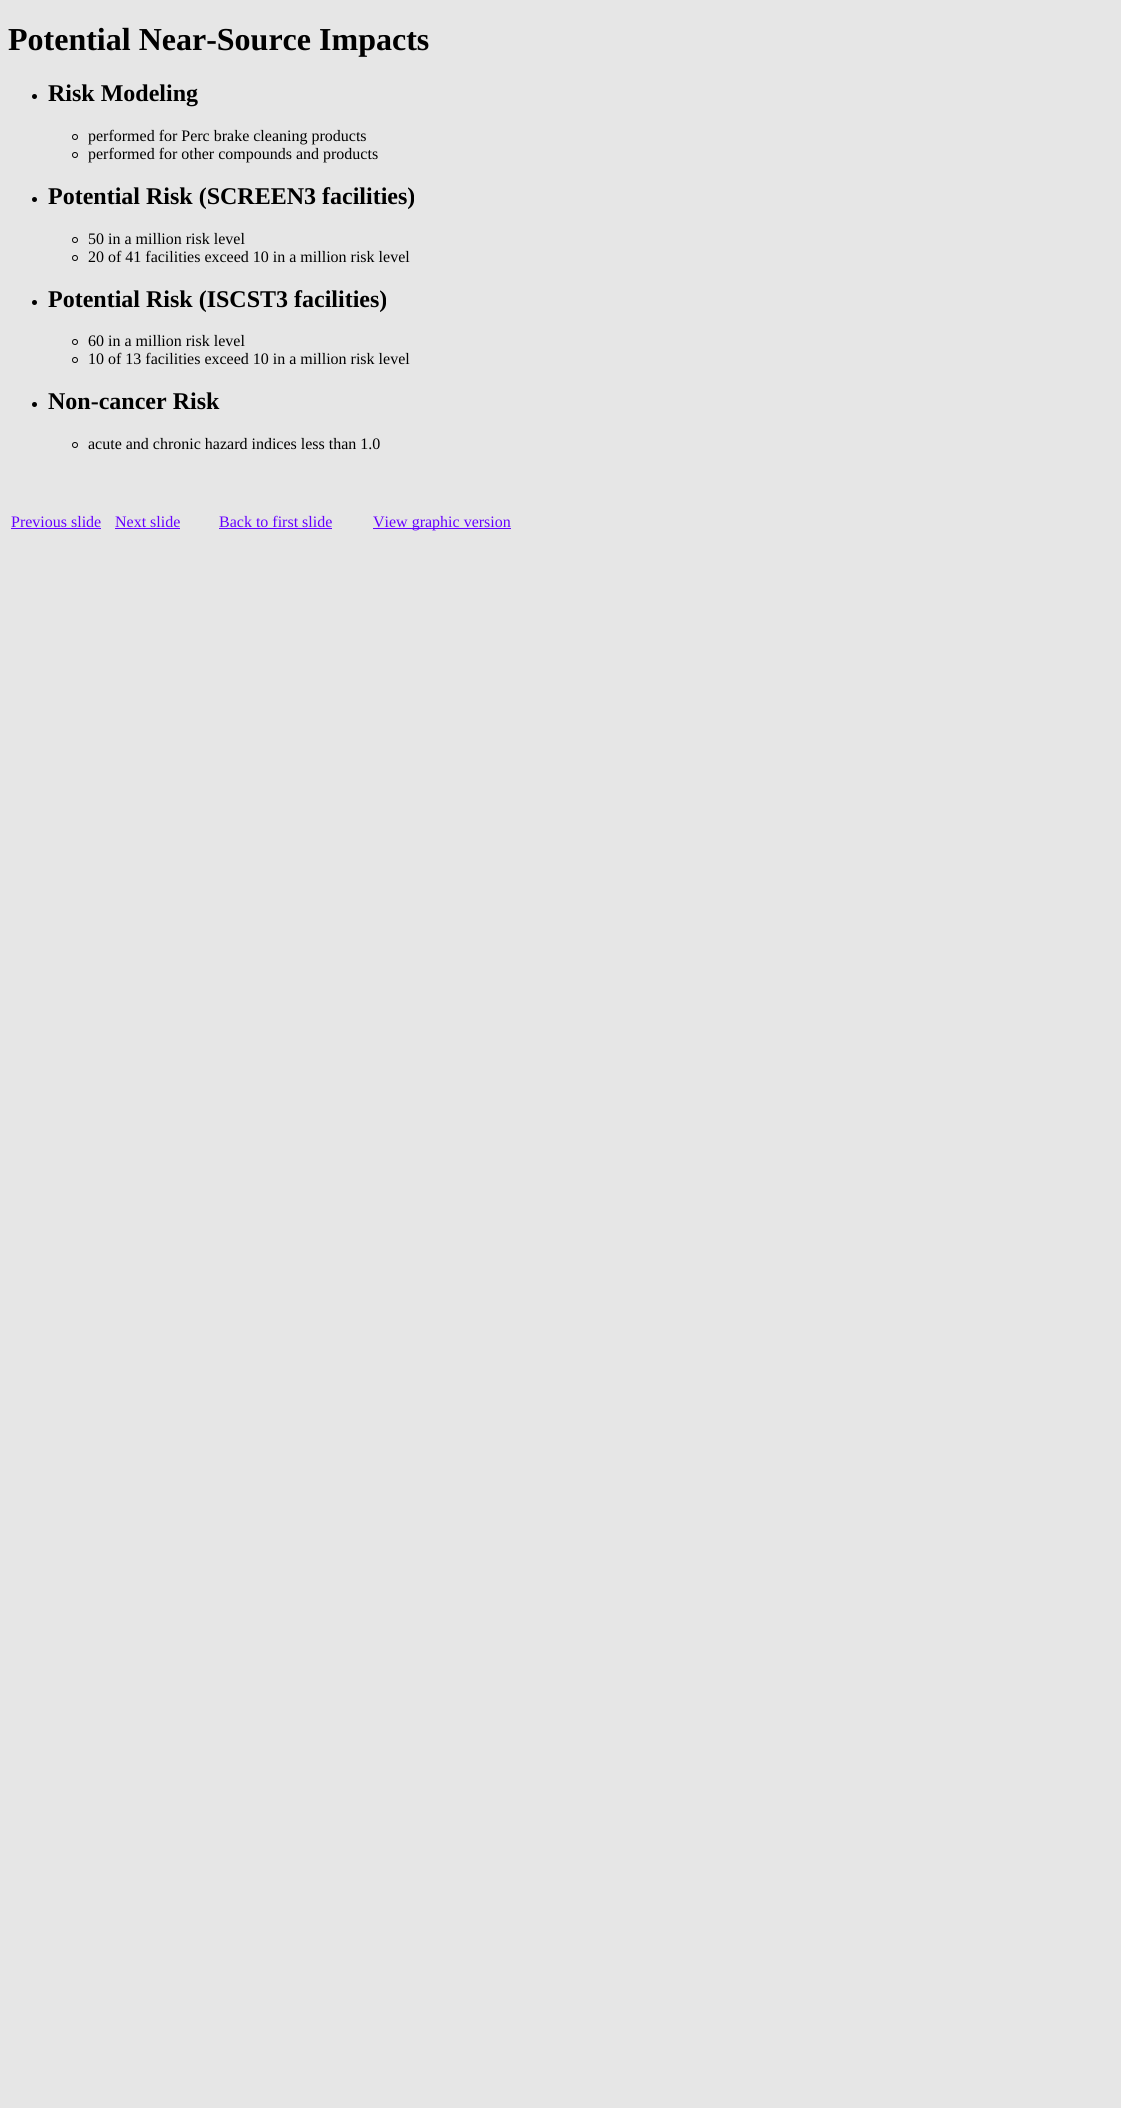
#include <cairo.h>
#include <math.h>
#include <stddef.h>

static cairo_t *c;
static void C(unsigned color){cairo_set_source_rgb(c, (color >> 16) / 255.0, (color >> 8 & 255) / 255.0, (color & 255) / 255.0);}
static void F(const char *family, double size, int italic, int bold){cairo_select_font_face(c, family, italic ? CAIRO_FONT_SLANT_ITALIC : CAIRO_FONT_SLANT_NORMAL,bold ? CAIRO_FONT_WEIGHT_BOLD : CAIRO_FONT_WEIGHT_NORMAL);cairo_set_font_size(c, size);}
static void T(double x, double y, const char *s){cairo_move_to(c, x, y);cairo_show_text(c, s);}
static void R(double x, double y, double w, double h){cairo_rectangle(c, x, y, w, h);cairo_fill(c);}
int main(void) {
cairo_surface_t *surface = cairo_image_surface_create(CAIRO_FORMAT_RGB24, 1121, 2108);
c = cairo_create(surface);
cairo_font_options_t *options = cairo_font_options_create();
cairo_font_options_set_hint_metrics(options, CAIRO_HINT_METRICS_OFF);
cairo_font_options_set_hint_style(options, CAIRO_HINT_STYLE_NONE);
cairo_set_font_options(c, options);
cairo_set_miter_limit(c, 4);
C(0xe6e6e6);
cairo_paint(c);
F("Liberation Serif",32,0,1);
C(0x000000);
T(8,50,"Potential Near-Source Impacts");
cairo_new_path(c);
cairo_arc(c,34.5,96.5,2.5,0,2 * M_PI);
cairo_fill(c);
F("Liberation Serif",24,0,1);
T(48,101,"Risk Modeling");
cairo_new_path(c);
cairo_arc(c,75,137,2.5,0,2 * M_PI);
cairo_set_line_width(c,1);
cairo_stroke(c);
F("Liberation Serif",16,0,0);
T(88,141,"performed for Perc brake cleaning products");
cairo_new_path(c);
cairo_arc(c,75,155,2.5,0,2 * M_PI);
cairo_stroke(c);
T(88,159,"performed for other compounds and products");
cairo_new_path(c);
cairo_arc(c,34.5,199.5,2.5,0,2 * M_PI);
cairo_fill(c);
F("Liberation Serif",24,0,1);
T(48,204,"Potential Risk (SCREEN3 facilities)");
cairo_new_path(c);
cairo_arc(c,75,240,2.5,0,2 * M_PI);
cairo_stroke(c);
F("Liberation Serif",16,0,0);
T(88,244,"50 in a million risk level");
cairo_new_path(c);
cairo_arc(c,75,258,2.5,0,2 * M_PI);
cairo_stroke(c);
T(88,262,"20 of 41 facilities exceed 10 in a million risk level");
cairo_new_path(c);
cairo_arc(c,34.5,302.5,2.5,0,2 * M_PI);
cairo_fill(c);
F("Liberation Serif",24,0,1);
T(48,307,"Potential Risk (ISCST3 facilities)");
cairo_new_path(c);
cairo_arc(c,75,342,2.5,0,2 * M_PI);
cairo_stroke(c);
F("Liberation Serif",16,0,0);
T(88,346,"60 in a million risk level");
cairo_new_path(c);
cairo_arc(c,75,360,2.5,0,2 * M_PI);
cairo_stroke(c);
T(88,364,"10 of 13 facilities exceed 10 in a million risk level");
cairo_new_path(c);
cairo_arc(c,34.5,404.5,2.5,0,2 * M_PI);
cairo_fill(c);
F("Liberation Serif",24,0,1);
T(48,409,"Non-cancer Risk");
cairo_new_path(c);
cairo_arc(c,75,445,2.5,0,2 * M_PI);
cairo_stroke(c);
F("Liberation Serif",16,0,0);
T(88,449,"acute and chronic hazard indices less than 1.0");
C(0x6600ff);
T(11,527,"Previous slide");
R(11,528,90,1);
T(115,527,"Next slide");
R(115,528,65,1);
T(219,527,"Back to first slide");
R(219,528,113,1);
R(373,528,138,1);
T(373,527,"View graphic version");
cairo_surface_write_to_png(surface, "o.png");
cairo_font_options_destroy(options);
cairo_destroy(c);
cairo_surface_destroy(surface);
return 0;
}
